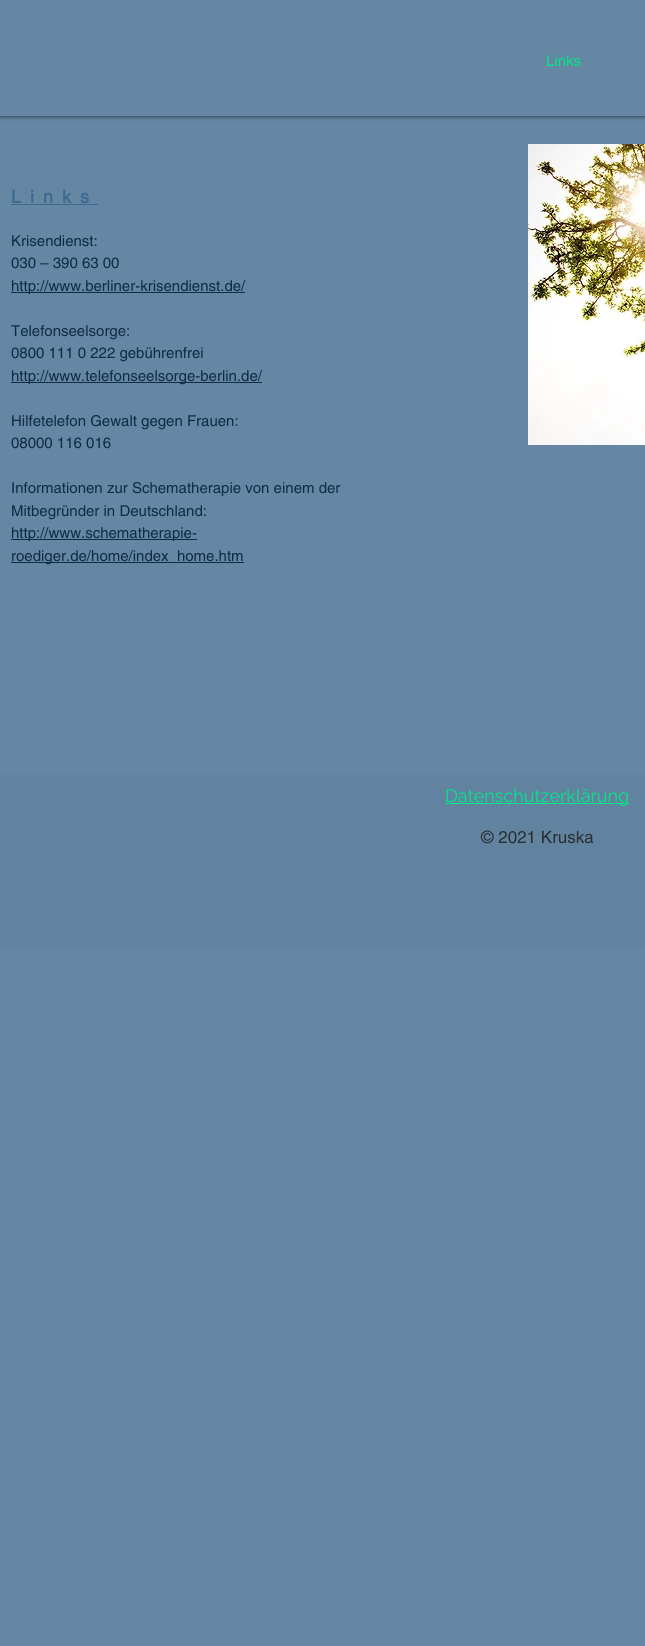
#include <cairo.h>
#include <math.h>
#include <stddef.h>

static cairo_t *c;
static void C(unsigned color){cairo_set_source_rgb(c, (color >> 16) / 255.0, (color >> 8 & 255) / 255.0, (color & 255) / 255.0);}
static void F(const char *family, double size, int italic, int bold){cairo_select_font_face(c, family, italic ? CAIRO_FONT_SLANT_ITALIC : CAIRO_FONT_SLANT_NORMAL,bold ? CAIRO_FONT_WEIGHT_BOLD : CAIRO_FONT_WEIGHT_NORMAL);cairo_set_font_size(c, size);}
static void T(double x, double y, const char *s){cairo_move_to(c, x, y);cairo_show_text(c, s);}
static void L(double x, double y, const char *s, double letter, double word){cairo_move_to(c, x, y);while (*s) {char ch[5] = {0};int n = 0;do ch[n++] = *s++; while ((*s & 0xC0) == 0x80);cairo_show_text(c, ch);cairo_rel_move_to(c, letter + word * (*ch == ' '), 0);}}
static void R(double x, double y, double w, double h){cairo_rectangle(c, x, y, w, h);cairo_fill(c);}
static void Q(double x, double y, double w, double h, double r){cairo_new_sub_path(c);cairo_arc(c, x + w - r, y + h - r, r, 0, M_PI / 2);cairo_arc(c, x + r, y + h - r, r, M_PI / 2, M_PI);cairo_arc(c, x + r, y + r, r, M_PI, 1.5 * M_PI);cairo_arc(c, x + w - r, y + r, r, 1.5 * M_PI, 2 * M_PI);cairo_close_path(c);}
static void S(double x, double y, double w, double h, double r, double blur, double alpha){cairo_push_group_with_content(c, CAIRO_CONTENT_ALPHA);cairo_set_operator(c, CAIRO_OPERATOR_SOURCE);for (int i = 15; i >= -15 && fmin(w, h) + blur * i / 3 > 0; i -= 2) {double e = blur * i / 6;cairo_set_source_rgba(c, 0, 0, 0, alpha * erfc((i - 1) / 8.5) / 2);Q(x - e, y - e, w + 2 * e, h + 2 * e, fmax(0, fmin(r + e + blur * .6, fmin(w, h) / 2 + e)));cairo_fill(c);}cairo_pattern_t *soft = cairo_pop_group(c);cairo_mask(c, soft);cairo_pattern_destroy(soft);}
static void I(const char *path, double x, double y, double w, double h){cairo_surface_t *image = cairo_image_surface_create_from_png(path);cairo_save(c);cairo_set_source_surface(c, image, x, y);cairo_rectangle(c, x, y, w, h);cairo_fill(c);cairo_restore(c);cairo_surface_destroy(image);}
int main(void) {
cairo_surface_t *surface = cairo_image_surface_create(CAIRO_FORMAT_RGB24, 645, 1646);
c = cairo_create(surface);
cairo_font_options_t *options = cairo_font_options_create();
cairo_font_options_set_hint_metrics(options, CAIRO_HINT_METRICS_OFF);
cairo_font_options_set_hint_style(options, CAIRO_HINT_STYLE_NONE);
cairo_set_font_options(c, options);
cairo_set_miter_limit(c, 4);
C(0x6587a4);
cairo_paint(c);
cairo_save(c);
cairo_rectangle(c,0,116,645,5);
cairo_clip(c);
C(0x000000);
S(0,0,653,116,0,2.5,.7);
cairo_restore(c);
F("helvetica",15,0,0);
C(0x00e689);
T(546,66,"Links");
F("helvetica",18,0,1);
C(0x3d698f);
L(11,203,"Links",9,0);
R(11,204,87,1);
I("1.png",528,144,117,301);
F("helvetica",15,0,0);
C(0x102b43);
T(11,246,"Krisendienst:");
T(11,268,"030 – 390 63 00");
R(11,292,234,1);
T(11,291,"http://www.berliner-krisendienst.de/");
T(11,336,"Telefonseelsorge:");
T(11,358,"0800 111 0 222 gebührenfrei");
R(11,382,251,1);
T(11,381,"http://www.telefonseelsorge-berlin.de/");
T(11,426,"Hilfetelefon Gewalt gegen Frauen:");
T(11,448,"08000 116 016");
T(11,493,"Informationen zur Schematherapie von einem der");
T(11,516,"Mitbegründer in Deutschland:");
R(11,539,186,1);
T(11,538,"http://www.schematherapie-");
R(11,562,233,1);
T(11,561,"roediger.de/home/index_home.htm");
C(0x62839f);
R(0,775,645,173);
C(0x00e689);
R(445,803,184,1);
F("Raleway",18,0,0);
T(445,802,"Datenschutzerklärung");
F("helvetica",17,0,0);
C(0x292f33);
T(481,843,"© 2021 Kruska");
cairo_surface_write_to_png(surface, "o.png");
cairo_font_options_destroy(options);
cairo_destroy(c);
cairo_surface_destroy(surface);
return 0;
}
